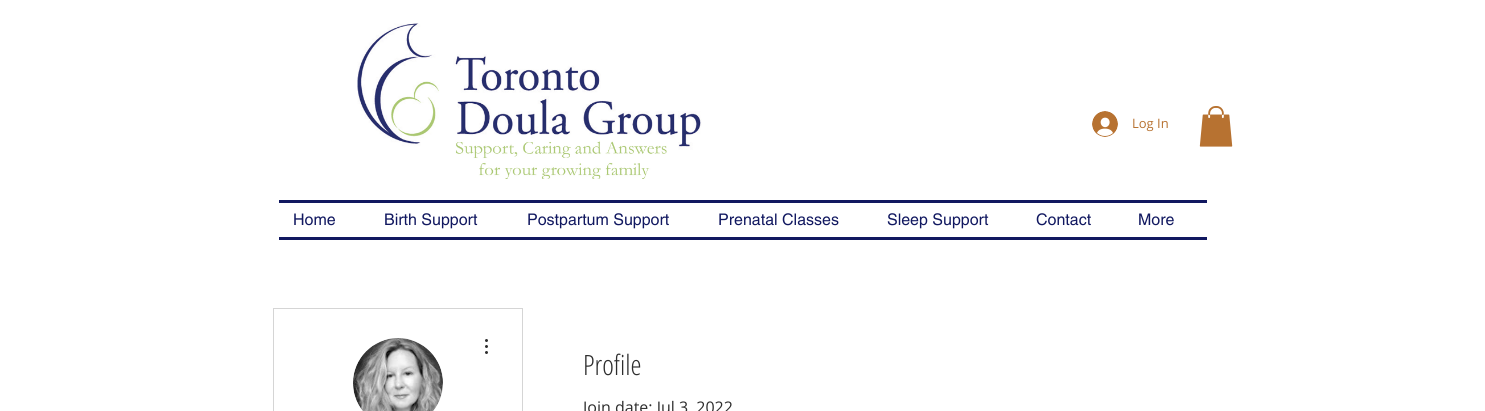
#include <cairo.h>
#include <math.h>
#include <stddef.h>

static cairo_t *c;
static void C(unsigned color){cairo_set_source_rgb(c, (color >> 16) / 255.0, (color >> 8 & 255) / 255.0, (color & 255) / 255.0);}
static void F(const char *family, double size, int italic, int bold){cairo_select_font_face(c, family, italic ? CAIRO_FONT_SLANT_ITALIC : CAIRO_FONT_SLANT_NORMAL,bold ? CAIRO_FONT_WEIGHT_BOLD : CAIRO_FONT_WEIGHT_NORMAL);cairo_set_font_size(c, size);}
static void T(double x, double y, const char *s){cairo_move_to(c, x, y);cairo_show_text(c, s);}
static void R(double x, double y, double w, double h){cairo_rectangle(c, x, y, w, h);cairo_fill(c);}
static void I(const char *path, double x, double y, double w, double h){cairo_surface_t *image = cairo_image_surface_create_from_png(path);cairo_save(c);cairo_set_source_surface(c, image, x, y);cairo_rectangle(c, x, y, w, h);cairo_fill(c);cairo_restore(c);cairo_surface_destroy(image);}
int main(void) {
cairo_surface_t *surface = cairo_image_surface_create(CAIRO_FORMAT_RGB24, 1485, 411);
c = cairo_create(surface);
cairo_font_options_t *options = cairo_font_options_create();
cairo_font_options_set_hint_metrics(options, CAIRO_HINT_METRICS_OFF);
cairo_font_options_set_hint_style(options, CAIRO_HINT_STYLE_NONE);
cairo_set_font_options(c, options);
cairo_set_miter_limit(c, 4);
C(0xffffff);
cairo_paint(c);
I("1.png",357,23,345,156);
I("2.png",1092,111,26,26);
F("Open Sans",13,0,0);
C(0xb77231);
T(1132,128,"Log In");
I("3.png",1199,106,34,41);
C(0x111860);
R(279,200,928,3);
R(279,237,928,3);
F("helvetica",16,0,0);
T(293,225,"Home");
T(384,225,"Birth Support");
T(527,225,"Postpartum Support");
T(718,225,"Prenatal Classes");
T(887,225,"Sleep Support");
T(1036,225,"Contact");
T(1138,225,"More");
cairo_rectangle(c,273.5,308.5,249,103);
C(0xd5d5d5);
cairo_set_line_width(c,1);
cairo_stroke(c);
C(0xd8d8d8);
cairo_arc(c,398,383,45,0,2 * M_PI);
cairo_fill(c);
I("4.png",353,338,90,73);
I("5.png",485,339,3,15);
F("Open Sans Condensed Light",28,0,0);
C(0x2d2d2d);
T(583,375,"Profile");
F("Open Sans",16,0,0);
T(583,413,"Join date: Jul 3, 2022");
cairo_surface_write_to_png(surface, "o.png");
cairo_font_options_destroy(options);
cairo_destroy(c);
cairo_surface_destroy(surface);
return 0;
}
